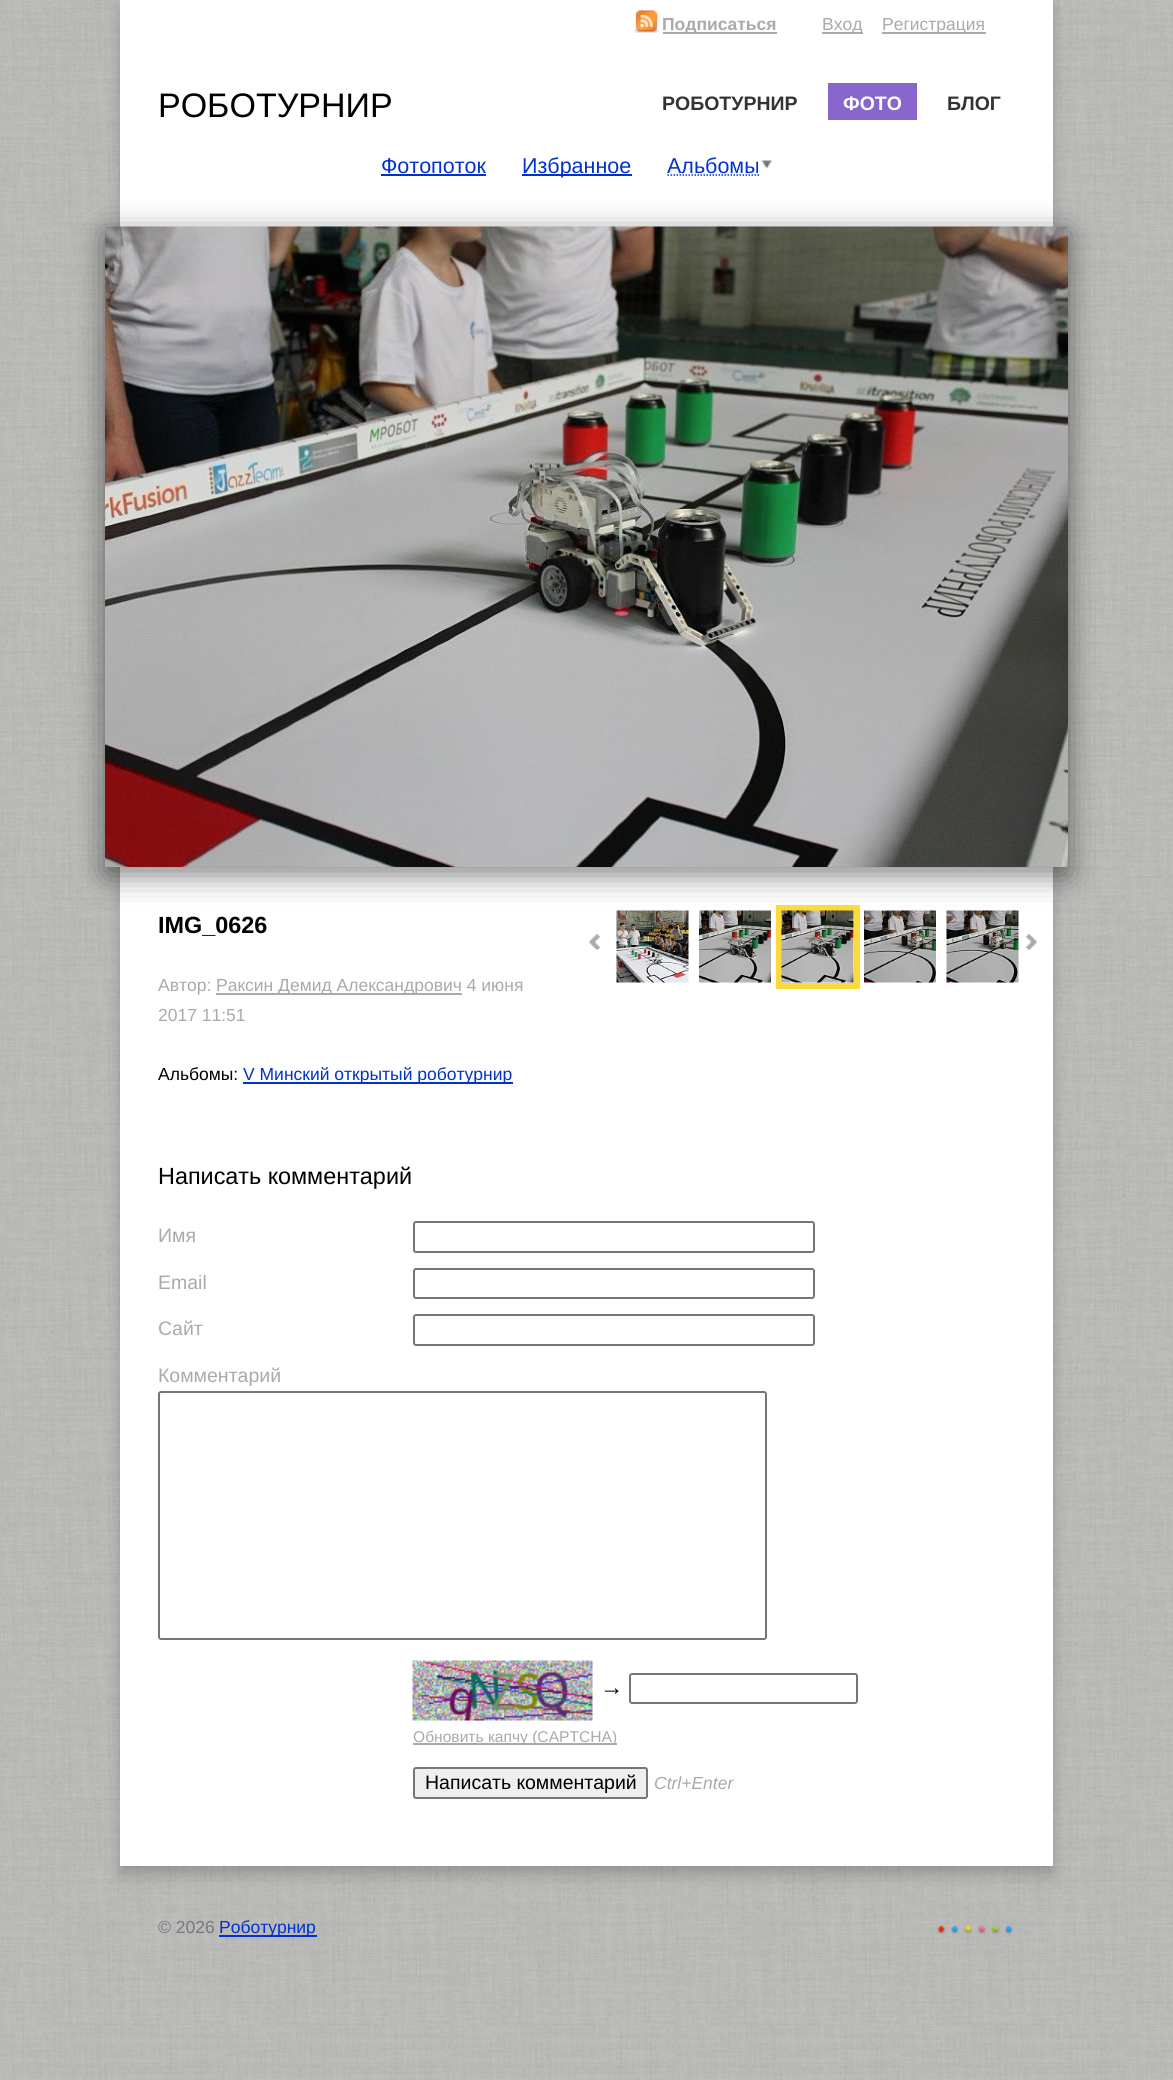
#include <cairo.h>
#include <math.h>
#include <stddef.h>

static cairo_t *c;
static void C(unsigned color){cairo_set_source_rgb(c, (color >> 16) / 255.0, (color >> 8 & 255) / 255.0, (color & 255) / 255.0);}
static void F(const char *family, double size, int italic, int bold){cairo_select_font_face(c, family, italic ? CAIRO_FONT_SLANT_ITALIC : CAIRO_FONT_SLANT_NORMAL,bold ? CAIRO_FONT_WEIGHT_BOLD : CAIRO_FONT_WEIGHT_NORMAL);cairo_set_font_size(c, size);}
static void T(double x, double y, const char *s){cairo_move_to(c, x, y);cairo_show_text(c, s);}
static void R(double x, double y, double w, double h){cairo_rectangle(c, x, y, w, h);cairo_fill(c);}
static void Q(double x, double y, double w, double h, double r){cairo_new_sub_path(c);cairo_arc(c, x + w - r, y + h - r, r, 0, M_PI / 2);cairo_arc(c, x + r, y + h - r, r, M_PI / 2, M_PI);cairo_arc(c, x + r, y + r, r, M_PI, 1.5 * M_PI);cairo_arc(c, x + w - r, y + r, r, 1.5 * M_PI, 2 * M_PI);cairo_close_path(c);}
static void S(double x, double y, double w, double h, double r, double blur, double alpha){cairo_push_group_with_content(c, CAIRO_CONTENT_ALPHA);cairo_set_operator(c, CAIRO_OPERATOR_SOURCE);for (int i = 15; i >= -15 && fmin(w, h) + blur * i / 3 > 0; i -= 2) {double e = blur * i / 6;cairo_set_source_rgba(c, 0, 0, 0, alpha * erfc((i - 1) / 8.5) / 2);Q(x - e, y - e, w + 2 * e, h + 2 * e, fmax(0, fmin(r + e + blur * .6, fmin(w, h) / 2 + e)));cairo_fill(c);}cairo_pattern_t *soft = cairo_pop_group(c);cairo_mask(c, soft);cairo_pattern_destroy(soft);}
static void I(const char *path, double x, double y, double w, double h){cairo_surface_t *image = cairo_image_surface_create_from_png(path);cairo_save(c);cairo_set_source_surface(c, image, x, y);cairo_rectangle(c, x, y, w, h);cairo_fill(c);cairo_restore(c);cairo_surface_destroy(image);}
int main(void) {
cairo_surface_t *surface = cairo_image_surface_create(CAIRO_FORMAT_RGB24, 1173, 2080);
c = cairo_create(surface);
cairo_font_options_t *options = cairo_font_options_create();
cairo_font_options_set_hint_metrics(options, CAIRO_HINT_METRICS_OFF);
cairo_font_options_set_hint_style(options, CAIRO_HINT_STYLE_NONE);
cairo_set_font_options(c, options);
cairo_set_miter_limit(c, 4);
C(0xffffff);
cairo_paint(c);
I("1.png",0,0,1173,2080);
C(0x000000);
S(120,8,933,1866,0,7.5,.2);
C(0xffffff);
R(120,0,933,1866);
I("2.png",634,10,25,23);
C(0xaaaaaa);
R(663,32,114,2);
F("Liberation Sans",17.5,0,1);
T(662,30,"Подписаться");
R(822,32,41,2);
F("Liberation Sans",17.5,0,0);
T(822,30,"Вход");
R(882,32,104,2);
T(882,30,"Регистрация");
F("Liberation Sans",34,0,0);
C(0x000000);
T(158,117,"РОБОТУРНИР");
F("Liberation Sans",19.5,0,1);
C(0x333333);
T(662,110,"РОБОТУРНИР");
C(0x8866cc);
R(828,83,89,37);
C(0xffffff);
T(843,110,"ФОТО");
C(0x333333);
T(947,110,"БЛОГ");
F("Liberation Sans",21.5,0,0);
C(0x0033cc);
T(381,173,"Фотопоток");
R(381,174,105,2);
R(522,174,110,2);
T(522,173,"Избранное");
T(667,173,"Альбомы");
cairo_new_path(c);
cairo_move_to(c,667.5,175);
cairo_line_to(c,759,175);
cairo_set_line_width(c,1.5);
cairo_set_dash(c,(double[]){1.5,1.5},2,0);
cairo_stroke(c);
I("3.png",761,160,12,9);
C(0x000000);
S(105,234,963,641,0,15,.5);
I("4.png",105,226,963,641);
F("Liberation Sans",23.4,0,1);
C(0x000000);
T(158,933,"IMG_0626");
F("Liberation Sans",17.5,0,0);
C(0xaaaaaa);
T(158,991,"Автор:");
R(216,993,246,2);
T(216,991,"Раксин Демид Александрович 4 июня");
T(158,1021,"2017 11:51");
C(0x000000);
T(158,1080,"Альбомы:");
C(0x0033cc);
R(243,1082,270,2);
T(243,1080,"V Минский открытый роботурнир");
I("5.png",589,934,12,16);
I("6.png",616,910,73,73);
I("7.png",699,910,72,73);
cairo_rectangle(c,779,908,78,78);
C(0xfdda3b);
cairo_set_line_width(c,6);
cairo_set_dash(c,NULL,0,0);
cairo_stroke(c);
I("8.png",781,910,73,73);
I("9.png",864,910,72,73);
I("10.png",946,910,73,73);
I("11.png",1025,934,12,16);
F("Liberation Sans",23.4,0,0);
C(0x000000);
T(158,1184,"Написать комментарий");
F("Liberation Sans",19.5,0,0);
C(0xaaaaaa);
T(158,1242,"Имя");
Q(414,1222,400,30,2);
C(0x767676);
cairo_set_line_width(c,2);
cairo_stroke(c);
C(0xaaaaaa);
T(158,1289,"Email");
Q(414,1269,400,29,2);
C(0x767676);
cairo_stroke(c);
C(0xaaaaaa);
T(158,1335,"Сайт");
Q(414,1315,400,30,2);
C(0x767676);
cairo_stroke(c);
C(0xaaaaaa);
T(158,1382,"Комментарий");
Q(159,1392,607,247,2);
C(0x767676);
cairo_stroke(c);
I("12.png",412,1660,181,61);
F("Liberation Sans",23.4,0,1);
C(0x000000);
T(600,1695,"→");
Q(630,1674,227,29,2);
C(0x767676);
cairo_stroke(c);
C(0xaaaaaa);
R(413,1743,204,2);
F("Liberation Sans",15.6,0,0);
T(413,1742,"Обновить капчу (CAPTCHA)");
C(0xefefef);
Q(414,1768,233,30,2);
cairo_fill_preserve(c);
C(0x767676);
cairo_stroke(c);
F("Liberation Sans",19.5,0,0);
C(0x000000);
T(425,1789,"Написать комментарий");
F("Liberation Sans",17.5,1,0);
C(0xaaaaaa);
T(654,1789,"Ctrl+Enter");
F("Liberation Sans",17.5,0,0);
C(0x777777);
T(158,1933,"© 2026");
C(0x0033cc);
R(219,1935,98,2);
T(219,1933,"Роботурнир");
I("13.png",937,1925,76,10);
cairo_surface_write_to_png(surface, "o.png");
cairo_font_options_destroy(options);
cairo_destroy(c);
cairo_surface_destroy(surface);
return 0;
}
